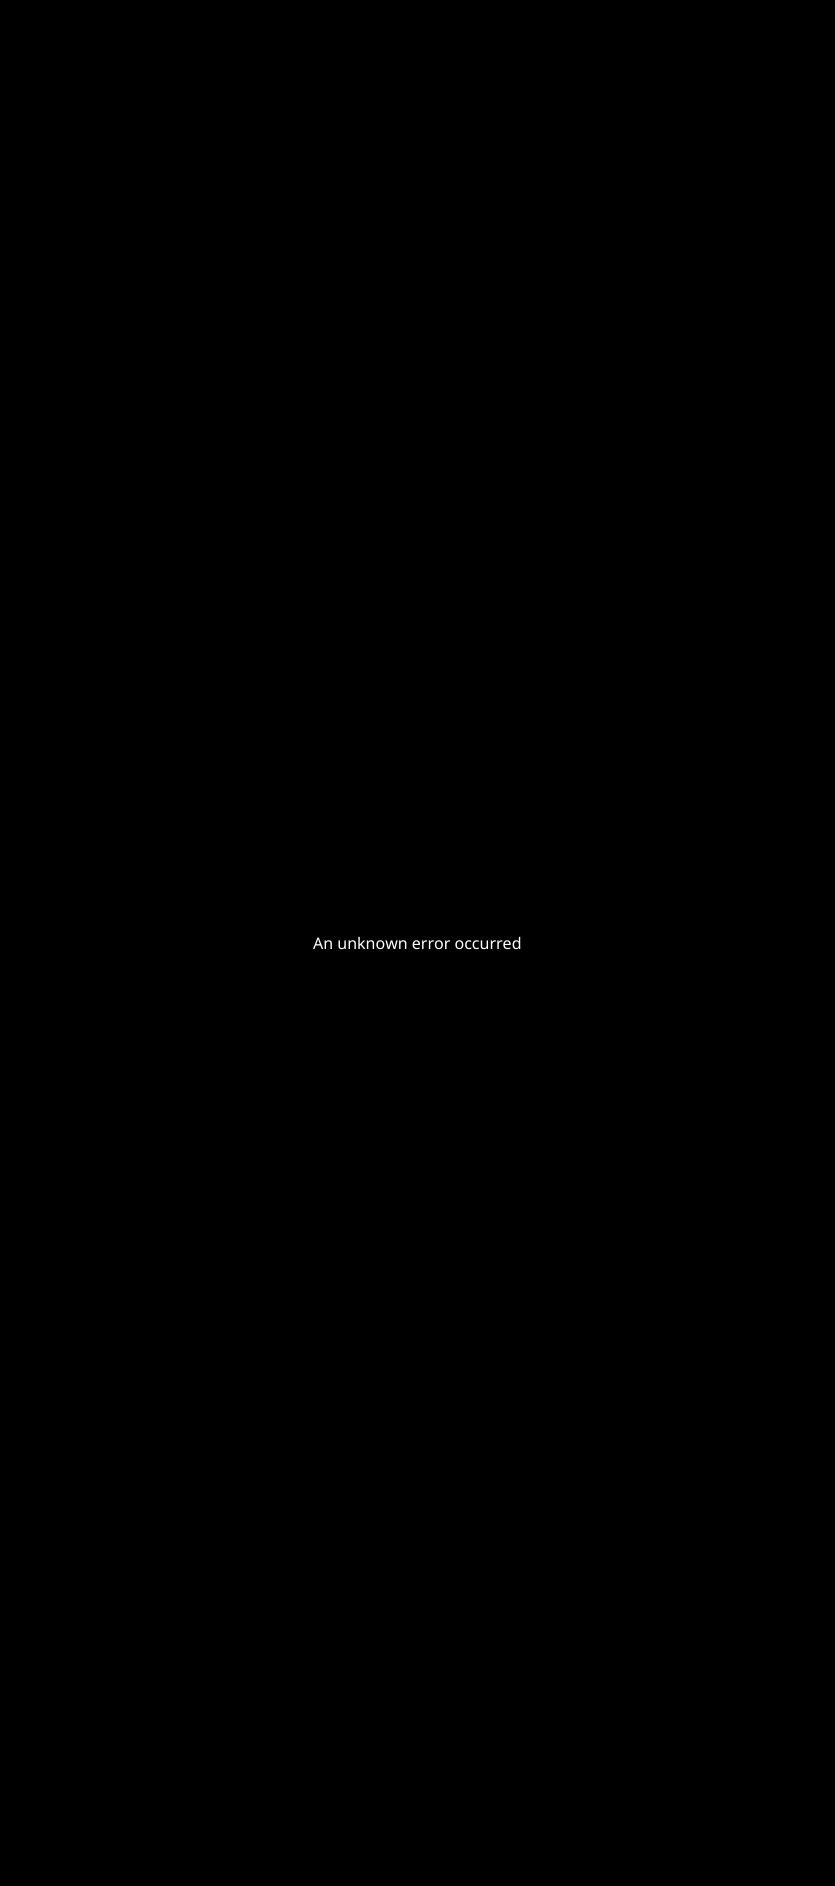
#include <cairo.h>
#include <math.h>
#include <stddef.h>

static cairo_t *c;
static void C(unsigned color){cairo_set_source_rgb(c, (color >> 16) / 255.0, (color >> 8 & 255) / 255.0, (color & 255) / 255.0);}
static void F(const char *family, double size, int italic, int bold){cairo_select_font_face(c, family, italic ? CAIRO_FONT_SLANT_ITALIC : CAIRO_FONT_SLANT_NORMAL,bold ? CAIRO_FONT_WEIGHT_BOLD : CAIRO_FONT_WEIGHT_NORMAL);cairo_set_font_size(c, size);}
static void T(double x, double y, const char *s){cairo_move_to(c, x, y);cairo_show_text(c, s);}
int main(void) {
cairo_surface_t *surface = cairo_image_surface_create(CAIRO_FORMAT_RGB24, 835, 1886);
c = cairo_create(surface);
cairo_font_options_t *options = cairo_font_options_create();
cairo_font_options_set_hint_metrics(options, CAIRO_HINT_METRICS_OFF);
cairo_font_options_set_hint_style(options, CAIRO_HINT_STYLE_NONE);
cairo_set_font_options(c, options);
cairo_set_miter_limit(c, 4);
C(0x000000);
cairo_paint(c);
F("Noto Sans",16,0,0);
C(0xffffff);
T(313,949,"An unknown error occurred");
cairo_surface_write_to_png(surface, "o.png");
cairo_font_options_destroy(options);
cairo_destroy(c);
cairo_surface_destroy(surface);
return 0;
}
